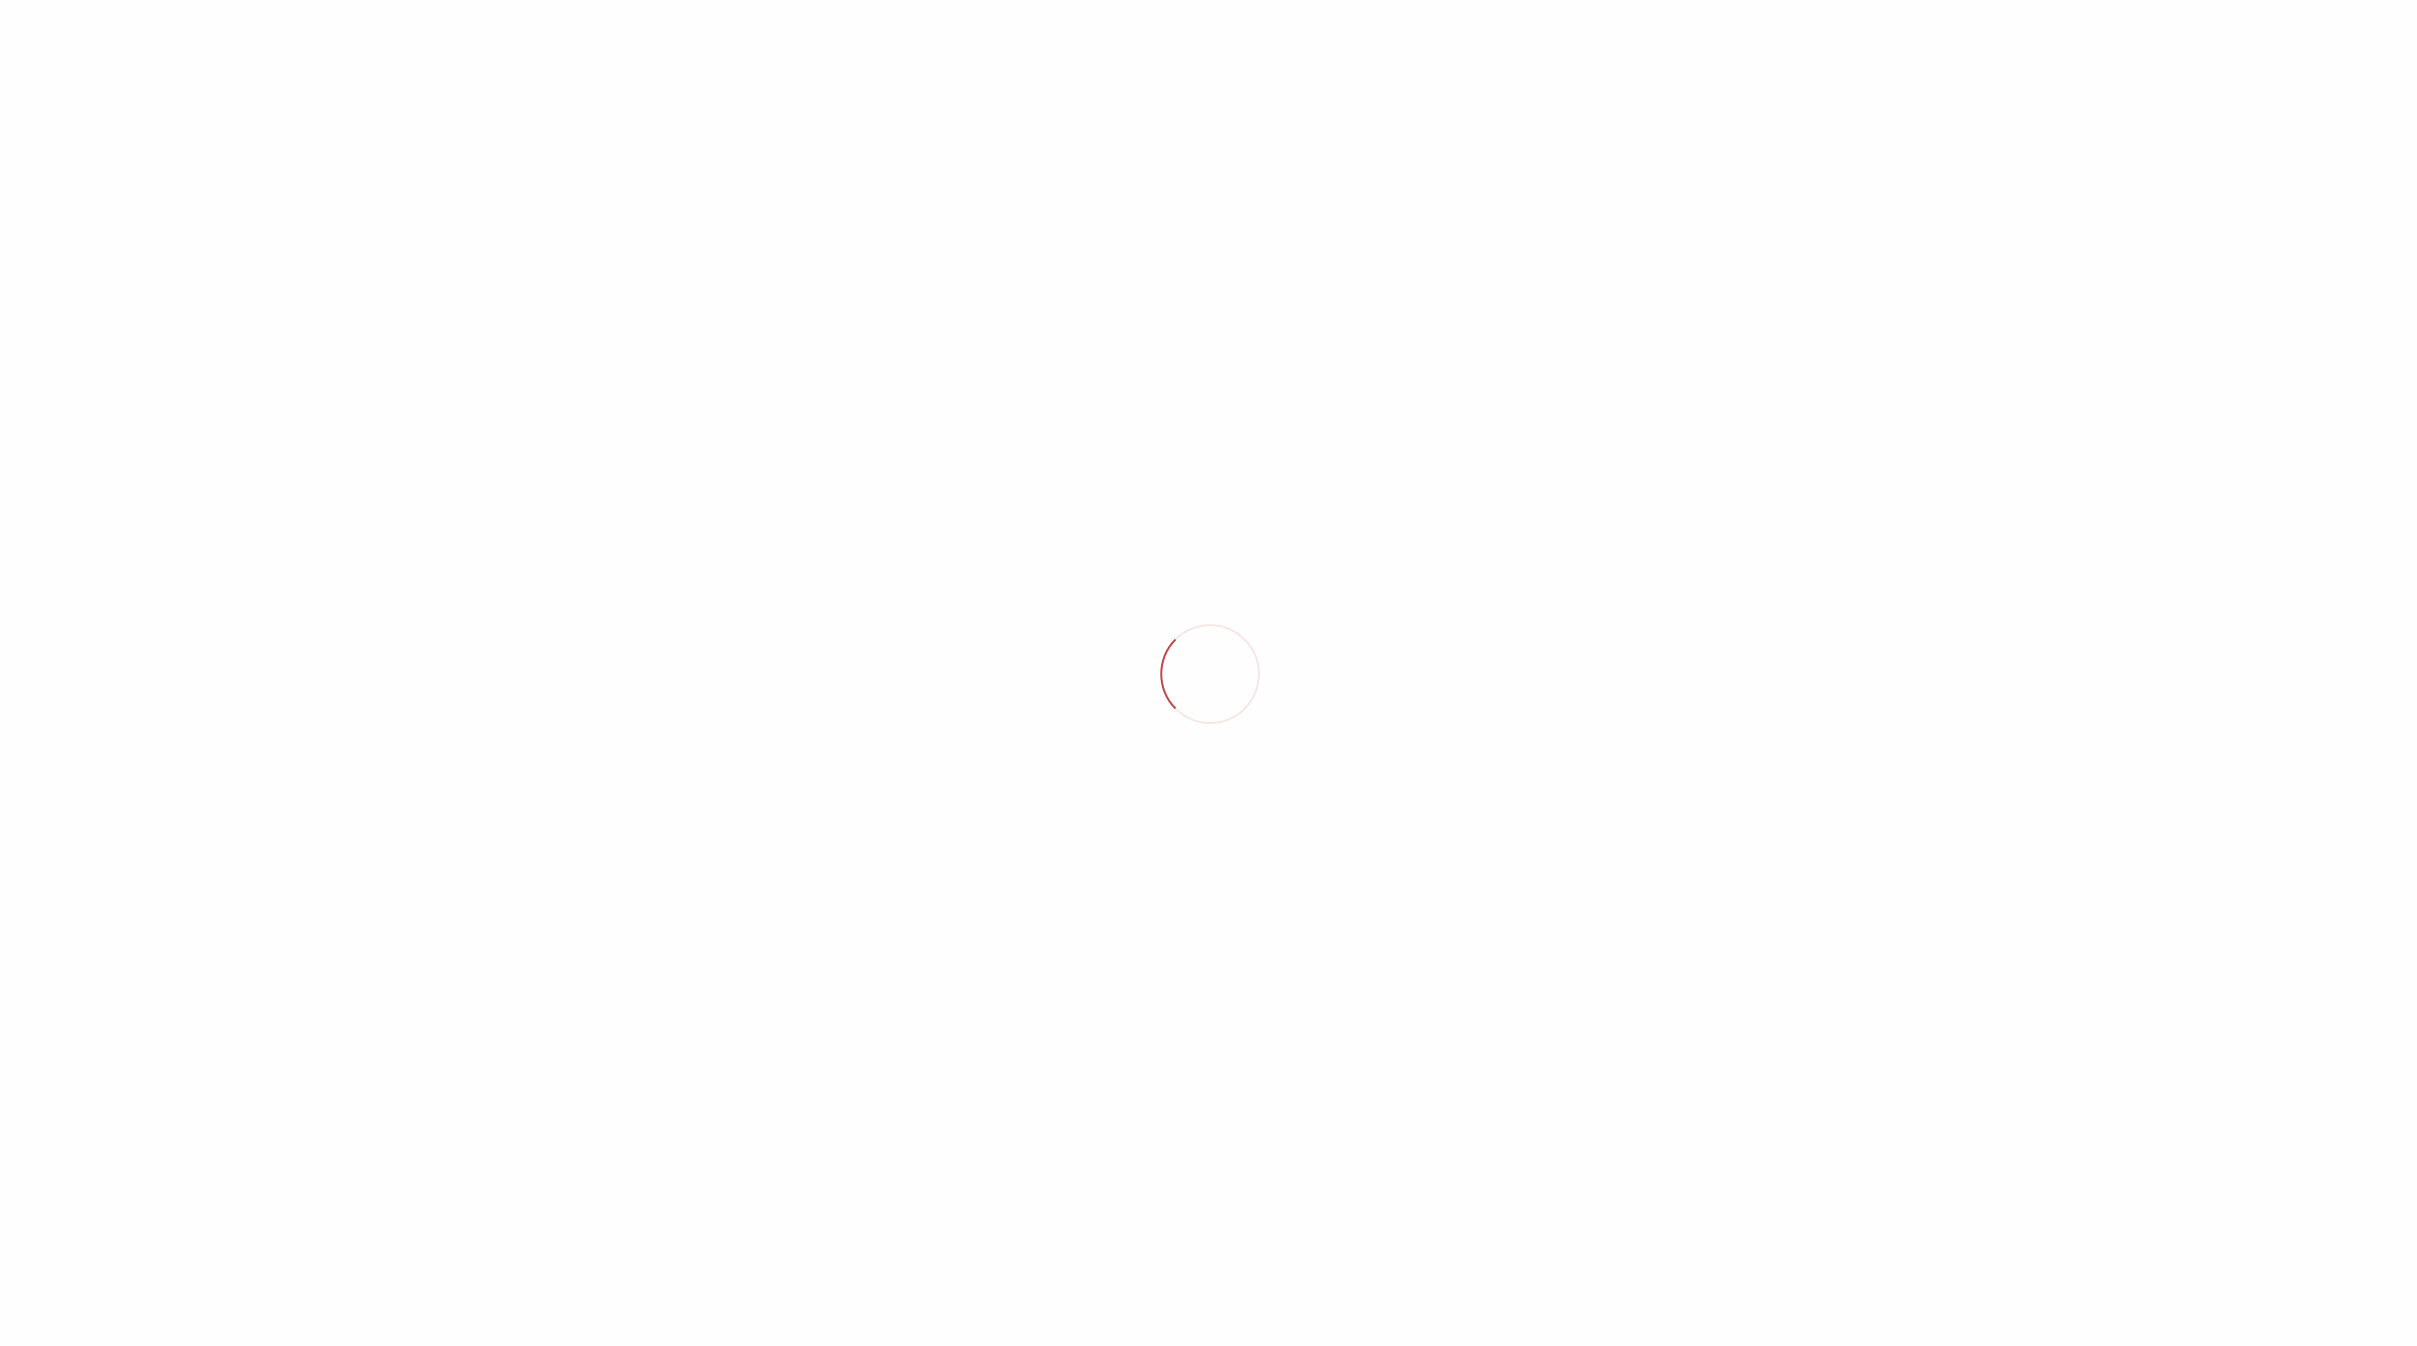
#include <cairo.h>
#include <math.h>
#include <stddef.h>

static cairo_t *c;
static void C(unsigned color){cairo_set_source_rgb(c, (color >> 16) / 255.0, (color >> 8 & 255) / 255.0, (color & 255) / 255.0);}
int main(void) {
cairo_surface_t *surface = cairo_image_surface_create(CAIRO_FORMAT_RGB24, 2417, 1346);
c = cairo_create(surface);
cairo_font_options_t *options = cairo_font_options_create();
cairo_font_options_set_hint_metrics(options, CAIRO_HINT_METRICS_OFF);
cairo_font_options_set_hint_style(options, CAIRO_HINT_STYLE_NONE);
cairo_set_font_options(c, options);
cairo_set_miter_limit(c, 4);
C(0xfefefe);
cairo_paint(c);
cairo_new_path(c);
cairo_move_to(c,1175.5,639.5);
cairo_curve_to(c,1187,628,1203.5,623,1219.5,626);
cairo_curve_to(c,1229,628,1238,632.5,1244.5,639.5);
cairo_curve_to(c,1275.5,670,1253.5,723,1210,723);
cairo_curve_to(c,1197,723,1184.5,718,1175.5,708.5);
C(0xf6e7e7);
cairo_stroke(c);
cairo_new_path(c);
cairo_move_to(c,1175.5,708.5);
cairo_curve_to(c,1156.5,690,1156.5,658,1175.5,639.5);
C(0xc14749);
cairo_stroke(c);
cairo_surface_write_to_png(surface, "o.png");
cairo_font_options_destroy(options);
cairo_destroy(c);
cairo_surface_destroy(surface);
return 0;
}
